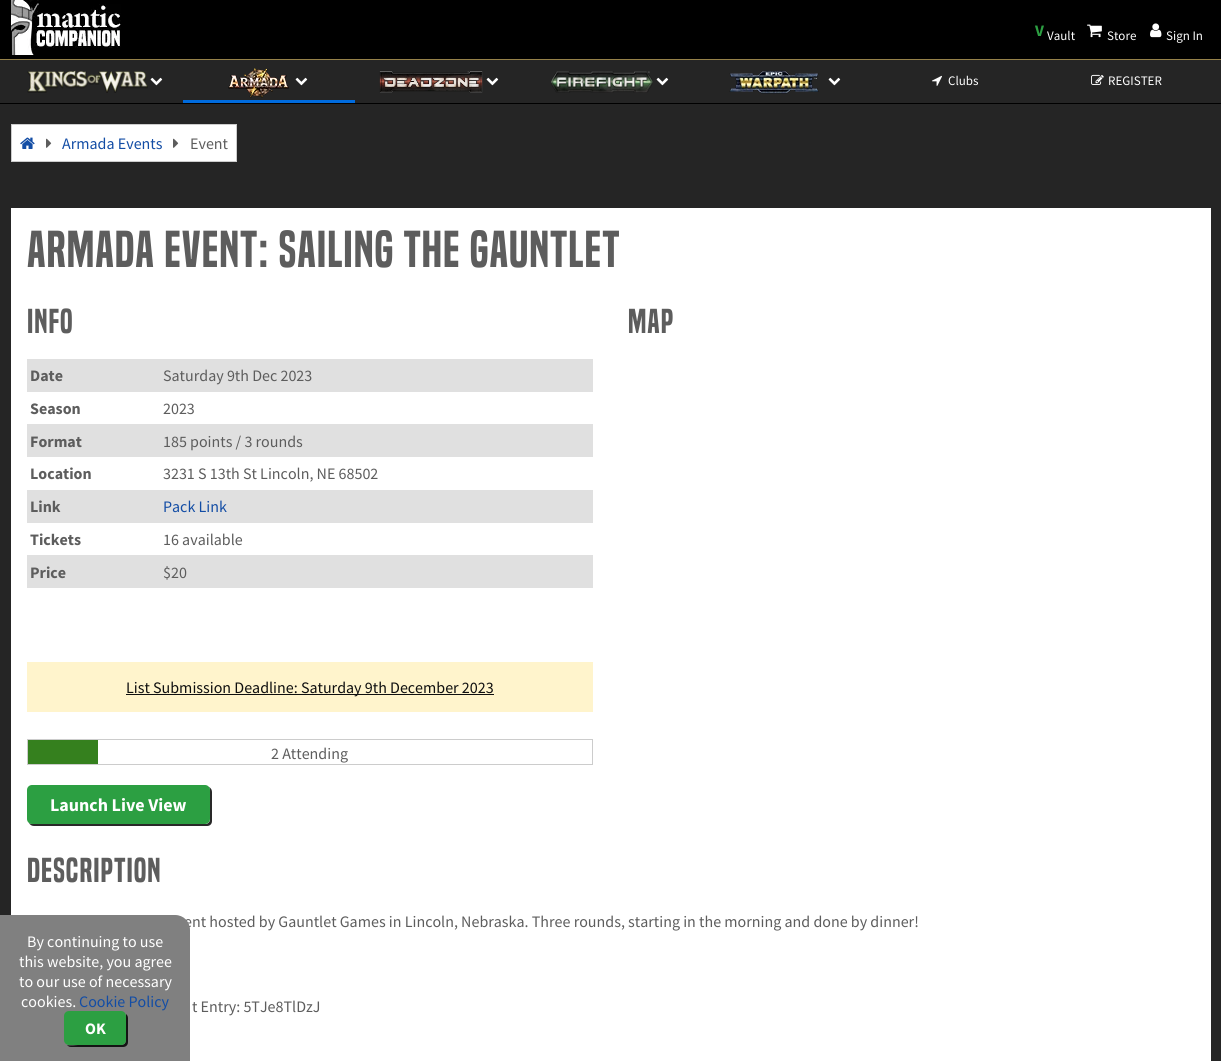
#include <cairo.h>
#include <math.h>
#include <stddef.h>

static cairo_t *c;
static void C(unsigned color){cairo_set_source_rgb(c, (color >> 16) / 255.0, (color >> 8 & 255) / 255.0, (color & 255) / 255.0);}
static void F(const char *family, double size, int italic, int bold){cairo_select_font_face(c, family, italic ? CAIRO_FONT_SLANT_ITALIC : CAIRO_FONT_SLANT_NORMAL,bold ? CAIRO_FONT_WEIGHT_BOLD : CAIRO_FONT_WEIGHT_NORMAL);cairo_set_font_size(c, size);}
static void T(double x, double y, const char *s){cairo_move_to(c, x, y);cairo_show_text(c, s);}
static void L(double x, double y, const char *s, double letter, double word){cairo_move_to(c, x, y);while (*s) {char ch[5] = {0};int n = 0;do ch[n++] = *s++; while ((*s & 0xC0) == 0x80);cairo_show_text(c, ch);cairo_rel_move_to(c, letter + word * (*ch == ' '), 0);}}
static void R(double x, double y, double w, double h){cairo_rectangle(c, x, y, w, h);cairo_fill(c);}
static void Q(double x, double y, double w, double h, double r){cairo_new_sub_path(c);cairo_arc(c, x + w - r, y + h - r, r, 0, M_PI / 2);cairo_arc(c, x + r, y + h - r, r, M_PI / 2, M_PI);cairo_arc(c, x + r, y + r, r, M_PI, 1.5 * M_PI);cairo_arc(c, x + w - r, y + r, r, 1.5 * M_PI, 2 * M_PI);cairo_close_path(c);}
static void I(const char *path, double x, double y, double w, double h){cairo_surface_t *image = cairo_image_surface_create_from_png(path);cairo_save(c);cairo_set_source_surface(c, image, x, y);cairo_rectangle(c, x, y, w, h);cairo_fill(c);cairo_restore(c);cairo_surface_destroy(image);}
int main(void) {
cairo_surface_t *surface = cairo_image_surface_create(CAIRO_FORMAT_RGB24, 1221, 1061);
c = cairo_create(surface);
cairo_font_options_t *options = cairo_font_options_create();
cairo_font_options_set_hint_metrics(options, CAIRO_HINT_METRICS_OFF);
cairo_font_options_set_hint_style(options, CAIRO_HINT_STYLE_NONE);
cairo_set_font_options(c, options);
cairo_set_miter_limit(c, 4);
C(0x252525);
cairo_paint(c);
C(0x000000);
R(0,0,1221,59);
C(0x958149);
R(0,59,1221,1);
I("1.png",11,0,110,55);
F("Source Sans Pro",16,0,1);
C(0x2c9f42);
T(1035,36,"V");
F("Source Sans Pro",13,0,0);
C(0xffffff);
T(1047,40,"Vault");
I("2.png",1087,24,15,14);
T(1107,40,"Store");
I("3.png",1150,23,12,15);
T(1166,40,"Sign In");
C(0x000000);
R(0,103,1221,1);
C(0x006bde);
R(180,100,175,3);
C(0x252525);
R(180,100,3,3);
I("4.png",27,70,121,23);
I("5.png",150,77,13,9);
I("6.png",228,68,61,30);
I("5.png",295,77,13,9);
I("7.png",379,70,104,23);
I("5.png",486,77,13,9);
I("8.png",551,71,102,22);
I("5.png",656,77,13,9);
I("9.png",729,70,90,24);
I("5.png",828,77,13,9);
I("10.png",932,75,10,11);
C(0xffffff);
T(948,85,"Clubs");
I("11.png",1091,74,13,11);
T(1108,85,"REGISTER");
cairo_rectangle(c,11.5,124.5,225,37);
cairo_fill_preserve(c);
C(0xcccccc);
cairo_set_line_width(c,1);
cairo_stroke(c);
I("12.png",20,137,15,12);
I("13.png",46,138,6,10);
F("Source Sans Pro",16,0,0);
C(0x134da5);
T(62,149,"Armada Events");
I("13.png",173,138,6,10);
C(0x5d5d5d);
T(190,149,"Event");
C(0xffffff);
R(11,208,1200,853);
F("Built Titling",48,0,0);
C(0x5d5d5d);
L(27,267,"Armada Event: Sailing the Gauntlet",1,0);
F("Built Titling",32,0,0);
L(27,333,"Info",1,0);
C(0xe0e0e0);
R(27,359,566,33);
F("Source Sans Pro",16,0,1);
C(0x5d5d5d);
T(30,381,"Date");
F("Source Sans Pro",16,0,0);
T(163,381,"Saturday 9th Dec 2023");
F("Source Sans Pro",16,0,1);
T(30,414,"Season");
F("Source Sans Pro",16,0,0);
T(163,414,"2023");
C(0xe0e0e0);
R(27,424,566,33);
F("Source Sans Pro",16,0,1);
C(0x5d5d5d);
T(30,447,"Format");
F("Source Sans Pro",16,0,0);
T(163,447,"185 points / 3 rounds");
F("Source Sans Pro",16,0,1);
T(30,479,"Location");
F("Source Sans Pro",16,0,0);
T(163,479,"3231 S 13th St Lincoln, NE 68502");
C(0xe0e0e0);
R(27,490,566,33);
F("Source Sans Pro",16,0,1);
C(0x5d5d5d);
T(30,512,"Link");
F("Source Sans Pro",16,0,0);
C(0x134da5);
T(163,512,"Pack Link");
F("Source Sans Pro",16,0,1);
C(0x5d5d5d);
T(30,545,"Tickets");
F("Source Sans Pro",16,0,0);
T(163,545,"16 available");
C(0xe0e0e0);
R(27,555,566,33);
F("Source Sans Pro",16,0,1);
C(0x5d5d5d);
T(30,578,"Price");
F("Source Sans Pro",16,0,0);
T(163,578,"$20");
C(0xfff4cc);
R(27,662,566,50);
C(0x0f0f0f);
R(126,694,368,1);
T(126,693,"List Submission Deadline: Saturday 9th December 2023");
cairo_rectangle(c,27.5,739.5,565,25);
C(0xcccccc);
cairo_stroke(c);
C(0x35801e);
R(28,740,70,24);
C(0x5d5d5d);
T(271,759,"2 Attending");
C(0x292929);
cairo_new_path(c);
cairo_move_to(c,29,823);
cairo_curve_to(c,30,825,32,826,34,826);
cairo_line_to(c,207,826);
cairo_curve_to(c,210,826,212,824,212,821);
cairo_line_to(c,212,792);
cairo_curve_to(c,212,790,211,788,209,787);
cairo_line_to(c,210,790);
cairo_line_to(c,210,819);
cairo_curve_to(c,210,822,208,824,205,824);
cairo_line_to(c,32,824);
cairo_close_path(c);
cairo_fill(c);
C(0x2c9f42);
Q(27,785,183,39,5);
cairo_fill(c);
F("Source Sans Pro",18,0,1);
C(0xffffff);
T(50,811,"Launch Live View");
F("Built Titling",32,0,0);
C(0x5d5d5d);
L(628,333,"Map",1,0);
L(27,882,"Description",1,0);
F("Source Sans Pro",16,0,0);
T(184,927,"ent hosted by Gauntlet Games in Lincoln, Nebraska. Three rounds, starting in the morning and done by dinner!");
T(192,1012,"t Entry: 5TJe8TlDzJ");
C(0x808080);
cairo_new_path(c);
cairo_move_to(c,0,915);
cairo_line_to(c,175,915);
cairo_curve_to(c,183.5,915,190,921.5,190,930);
cairo_line_to(c,190,1061);
cairo_line_to(c,0,1061);
cairo_close_path(c);
cairo_fill(c);
C(0xffffff);
T(27,947,"By continuing to use");
T(19,967,"this website, you agree");
T(19,987,"to our use of necessary");
T(21,1007,"cookies.");
C(0x134da5);
T(79,1007,"Cookie Policy");
C(0x141414);
cairo_new_path(c);
cairo_move_to(c,67,1045);
cairo_curve_to(c,68,1046,69,1047,71,1047);
cairo_line_to(c,123,1047);
cairo_curve_to(c,126,1047,128,1045,128,1042);
cairo_line_to(c,128,1018);
cairo_curve_to(c,128,1016,127,1015,126,1014);
cairo_line_to(c,126,1032);
cairo_curve_to(c,126,1046,127,1045,112,1045);
cairo_line_to(c,78,1045);
cairo_curve_to(c,77,1045,70,1046,67,1045);
cairo_close_path(c);
cairo_fill(c);
C(0x2c9f42);
Q(64,1011,62,34,5);
cairo_fill(c);
F("Source Sans Pro",16,0,1);
C(0xffffff);
T(85,1034,"OK");
cairo_surface_write_to_png(surface, "o.png");
cairo_font_options_destroy(options);
cairo_destroy(c);
cairo_surface_destroy(surface);
return 0;
}
